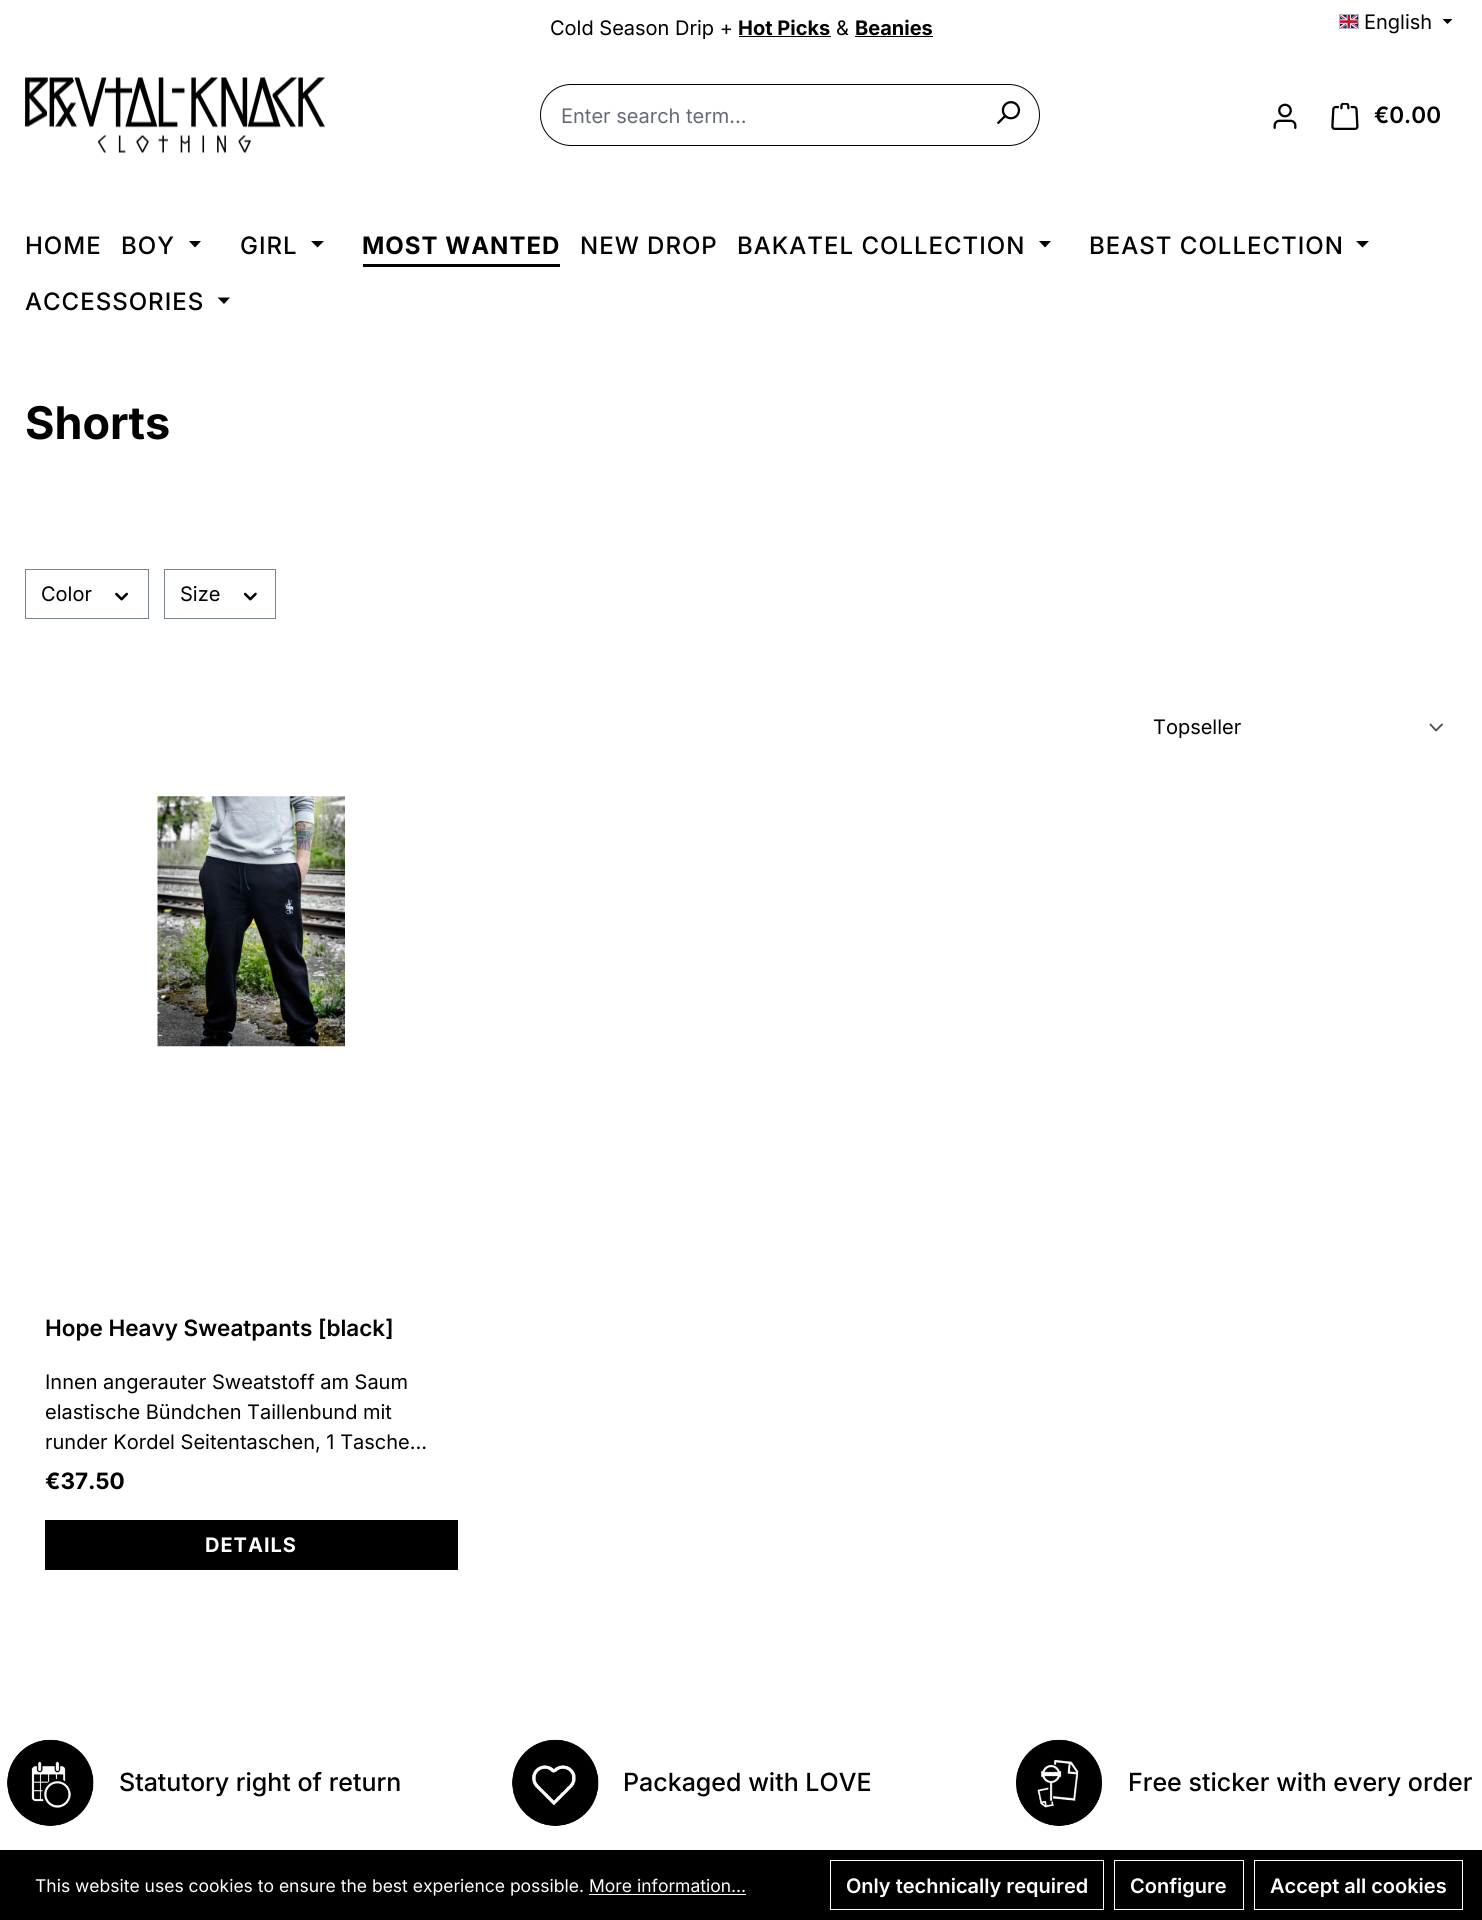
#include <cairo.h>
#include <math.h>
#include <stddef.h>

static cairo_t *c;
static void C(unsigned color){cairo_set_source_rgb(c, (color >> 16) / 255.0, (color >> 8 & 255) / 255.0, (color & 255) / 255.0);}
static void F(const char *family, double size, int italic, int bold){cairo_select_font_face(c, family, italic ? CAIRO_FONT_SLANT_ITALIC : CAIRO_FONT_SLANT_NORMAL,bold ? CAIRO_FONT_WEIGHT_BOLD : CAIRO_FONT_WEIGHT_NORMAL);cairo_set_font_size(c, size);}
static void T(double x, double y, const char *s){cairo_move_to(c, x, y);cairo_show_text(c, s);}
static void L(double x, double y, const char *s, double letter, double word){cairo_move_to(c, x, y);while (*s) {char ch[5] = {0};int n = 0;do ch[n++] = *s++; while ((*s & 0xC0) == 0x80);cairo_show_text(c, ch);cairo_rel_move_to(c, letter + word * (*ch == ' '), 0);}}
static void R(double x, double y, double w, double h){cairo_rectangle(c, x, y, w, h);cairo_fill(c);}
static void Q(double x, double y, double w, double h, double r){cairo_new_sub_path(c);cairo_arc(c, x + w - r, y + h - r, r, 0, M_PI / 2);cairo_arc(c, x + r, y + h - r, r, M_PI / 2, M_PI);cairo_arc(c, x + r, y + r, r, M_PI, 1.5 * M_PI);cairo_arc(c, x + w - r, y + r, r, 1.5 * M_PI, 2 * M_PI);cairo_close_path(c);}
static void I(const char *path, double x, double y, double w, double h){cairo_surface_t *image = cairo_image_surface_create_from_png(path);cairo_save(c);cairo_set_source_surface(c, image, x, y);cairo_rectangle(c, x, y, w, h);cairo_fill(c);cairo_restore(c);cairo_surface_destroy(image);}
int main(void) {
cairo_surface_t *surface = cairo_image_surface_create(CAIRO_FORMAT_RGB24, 1482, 1920);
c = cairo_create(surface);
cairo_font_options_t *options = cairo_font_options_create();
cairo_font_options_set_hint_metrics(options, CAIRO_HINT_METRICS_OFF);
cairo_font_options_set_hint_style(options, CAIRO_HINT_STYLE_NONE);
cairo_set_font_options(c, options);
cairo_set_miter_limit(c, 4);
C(0xffffff);
cairo_paint(c);
I("1.png",1340,15,18,13);
cairo_rectangle(c,1339.5,14.5,19,14);
C(0xadb5bd);
cairo_set_line_width(c,1);
cairo_stroke(c);
F("Inter",20,0,0);
C(0x000000);
T(1364,29,"English");
cairo_new_path(c);
cairo_move_to(c,1442.5,19);
cairo_line_to(c,1452.5,19);
cairo_line_to(c,1447.5,24);
cairo_close_path(c);
cairo_fill(c);
I("2.png",25,77,300,76);
Q(540.5,84.5,499,61,30.5);
cairo_stroke(c);
C(0x666977);
T(561,123,"Enter search term...");
I("3.png",997,101,24,23);
I("4.png",1273,103,24,26);
I("5.png",1331,103,28,27);
F("Inter SemiBold",22.5,0,0);
C(0x000000);
T(1374,123,"€0.00");
F("Inter",20,0,0);
T(550,35,"Cold Season Drip +");
F("Inter",20,0,1);
T(738,35,"Hot Picks");
R(739,36,92,1);
F("Inter",20,0,0);
T(836,35,"&");
F("Inter",20,0,1);
T(855,35,"Beanies");
R(855,36,78,1);
F("Inter Medium",24,0,0);
L(25,254,"HOME",1,0);
L(121,254,"BOY",1,0);
cairo_new_path(c);
cairo_move_to(c,189,241);
cairo_line_to(c,201,241);
cairo_line_to(c,195,247.5);
cairo_close_path(c);
cairo_fill(c);
L(240,254,"GIRL",1,0);
cairo_new_path(c);
cairo_move_to(c,311,241);
cairo_line_to(c,324,241);
cairo_line_to(c,317.5,247.5);
cairo_close_path(c);
cairo_fill(c);
F("Inter",24,0,1);
L(362,254,"MOST WANTED",1,0);
R(363,264,197,3);
F("Inter Medium",24,0,0);
L(580,254,"NEW DROP",1,0);
L(737,254,"BAKATEL COLLECTION",1,0);
cairo_new_path(c);
cairo_move_to(c,1039,241);
cairo_line_to(c,1051,241);
cairo_line_to(c,1045,247.5);
cairo_close_path(c);
cairo_fill(c);
L(1089,254,"BEAST COLLECTION",1,0);
cairo_new_path(c);
cairo_move_to(c,1356,241);
cairo_line_to(c,1369,241);
cairo_line_to(c,1362.5,247.5);
cairo_close_path(c);
cairo_fill(c);
L(25,310,"ACCESSORIES",1,0);
cairo_new_path(c);
cairo_move_to(c,217.5,297.5);
cairo_line_to(c,230,297.5);
cairo_line_to(c,224,304);
cairo_close_path(c);
cairo_fill(c);
F("Inter",45,0,1);
T(25,439,"Shorts");
cairo_rectangle(c,25.5,569.5,123,49);
C(0x798490);
cairo_stroke(c);
F("Inter",20,0,0);
C(0x000000);
T(41,601,"Color");
I("6.png",115,592,13,9);
cairo_rectangle(c,164.5,569.5,111,49);
C(0x798490);
cairo_stroke(c);
C(0x000000);
T(180,601,"Size");
I("7.png",243,592,14,9);
cairo_new_path(c);
cairo_move_to(c,1430.5,724.5);
cairo_line_to(c,1436,730.5);
cairo_line_to(c,1442,724.5);
C(0x4a545b);
cairo_set_line_width(c,1.9);
cairo_set_line_cap(c,CAIRO_LINE_CAP_ROUND);
cairo_set_line_join(c,CAIRO_LINE_JOIN_ROUND);
cairo_stroke(c);
C(0x000000);
T(1153,734,"Topseller");
I("8.png",157,796,188,251);
F("Inter SemiBold",22.5,0,0);
T(45,1336,"Hope Heavy Sweatpants [black]");
F("Inter",20,0,0);
T(45,1389,"Innen angerauter Sweatstoff am Saum");
T(45,1419,"elastische Bündchen Taillenbund mit");
T(45,1449,"runder Kordel Seitentaschen, 1 Tasche…");
F("Inter",22.5,0,1);
T(45,1489,"€37.50");
R(45,1520,413,50);
F("Inter",20,0,1);
C(0xffffff);
L(205,1552,"DETAILS",1,0);
I("9.png",7,1739,87,87);
F("Inter Medium",25,0,0);
C(0x000000);
T(119,1791,"Statutory right of return");
I("10.png",512,1739,87,87);
T(623,1791,"Packaged with LOVE");
I("11.png",1016,1739,86,87);
T(1128,1791,"Free sticker with every order");
R(0,1850,1482,70);
F("Inter",17.5,0,0);
C(0xffffff);
T(35,1892,"This website uses cookies to ensure the best experience possible. More information...");
R(589,1894,157,1);
cairo_rectangle(c,830.5,1860.5,273,49);
cairo_set_line_width(c,1);
cairo_set_line_cap(c,CAIRO_LINE_CAP_BUTT);
cairo_set_line_join(c,CAIRO_LINE_JOIN_MITER);
cairo_stroke(c);
F("Inter SemiBold",20,0,0);
T(846,1893,"Only technically required");
cairo_rectangle(c,1114.5,1860.5,129,49);
cairo_stroke(c);
T(1130,1893,"Configure");
cairo_rectangle(c,1254.5,1860.5,208,49);
cairo_stroke(c);
T(1270,1893,"Accept all cookies");
cairo_surface_write_to_png(surface, "o.png");
cairo_font_options_destroy(options);
cairo_destroy(c);
cairo_surface_destroy(surface);
return 0;
}
